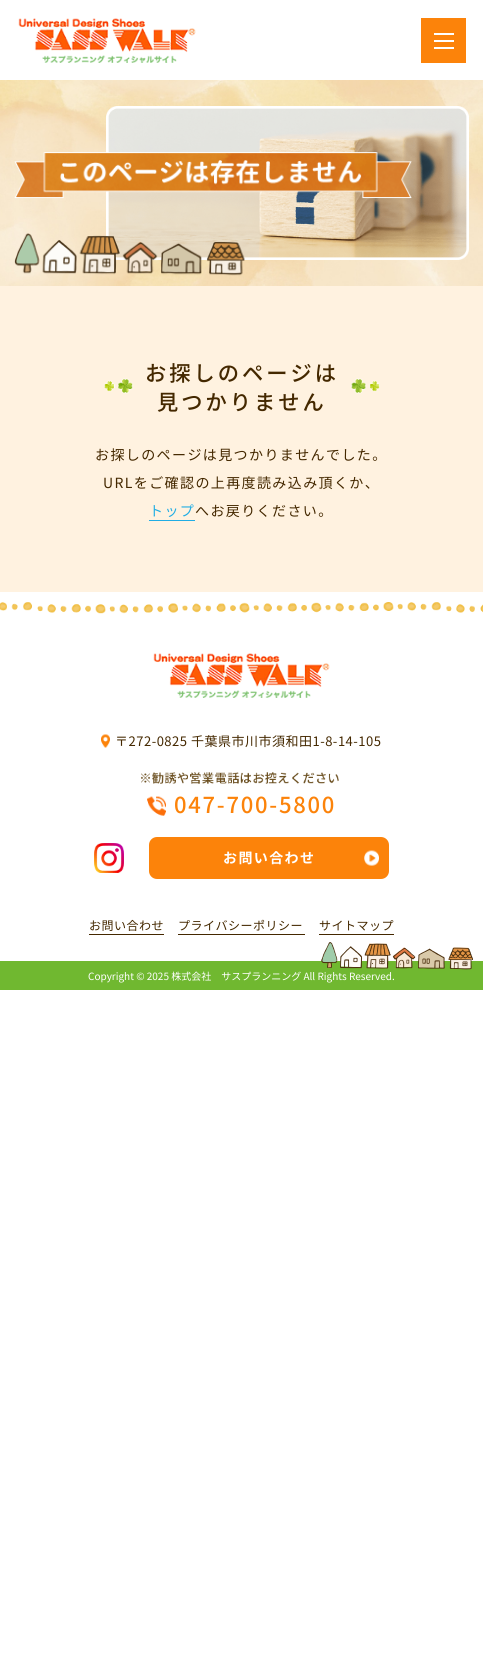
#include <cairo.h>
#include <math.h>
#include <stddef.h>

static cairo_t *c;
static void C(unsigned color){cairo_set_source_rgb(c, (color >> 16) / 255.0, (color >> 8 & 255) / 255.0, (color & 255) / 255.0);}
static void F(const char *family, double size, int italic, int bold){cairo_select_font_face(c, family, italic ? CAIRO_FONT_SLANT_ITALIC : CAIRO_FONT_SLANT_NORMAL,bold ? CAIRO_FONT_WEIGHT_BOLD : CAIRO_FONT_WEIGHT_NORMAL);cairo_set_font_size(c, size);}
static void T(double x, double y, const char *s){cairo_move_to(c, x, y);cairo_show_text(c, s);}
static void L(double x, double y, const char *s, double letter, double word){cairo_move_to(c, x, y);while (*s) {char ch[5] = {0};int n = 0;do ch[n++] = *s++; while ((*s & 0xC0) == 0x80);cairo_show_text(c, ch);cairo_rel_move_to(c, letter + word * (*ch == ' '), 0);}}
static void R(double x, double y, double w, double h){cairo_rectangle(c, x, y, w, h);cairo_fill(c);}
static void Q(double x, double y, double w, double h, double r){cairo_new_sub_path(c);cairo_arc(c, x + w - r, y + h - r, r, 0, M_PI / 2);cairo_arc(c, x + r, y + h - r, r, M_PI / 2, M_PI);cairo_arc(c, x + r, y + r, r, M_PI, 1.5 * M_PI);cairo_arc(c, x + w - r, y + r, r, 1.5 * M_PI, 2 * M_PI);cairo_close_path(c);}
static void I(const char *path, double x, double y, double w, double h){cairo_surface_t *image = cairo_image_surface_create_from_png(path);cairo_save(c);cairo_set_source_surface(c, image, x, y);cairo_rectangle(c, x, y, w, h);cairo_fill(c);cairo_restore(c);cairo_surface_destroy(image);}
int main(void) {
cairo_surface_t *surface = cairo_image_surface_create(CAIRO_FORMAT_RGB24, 483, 1678);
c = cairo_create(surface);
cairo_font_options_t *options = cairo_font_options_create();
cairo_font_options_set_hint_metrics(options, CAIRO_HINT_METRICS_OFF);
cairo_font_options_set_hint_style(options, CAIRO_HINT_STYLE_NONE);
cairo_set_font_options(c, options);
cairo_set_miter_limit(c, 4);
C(0xffffff);
cairo_paint(c);
I("1.png",18,18,178,45);
C(0xfc830a);
R(421,18,45,45);
C(0xffffff);
R(434,33,20,2);
R(434,40,20,2);
R(434,47,20,2);
I("2.png",0,80,483,206);
I("3.png",106,106,363,154);
I("4.png",14,152,398,124);
C(0xfff2e0);
R(0,286,483,306);
I("5.png",104,378,276,16);
F("Noto Sans JP Medium",21.25,0,0);
C(0x442800);
L(145,381,"お探しのページは",3,0);
L(157,410,"見つかりません",3,0);
F("Noto Sans JP",14,0,0);
L(95,460,"お探しのページは見つかりませんでした。",1.4,0);
L(103,488,"URLをご確認の上再度読み込み頂くか、",1.4,0);
C(0x21ade4);
L(149,516,"トップ",1.4,0);
R(149,520,46,1);
C(0x442800);
L(195,516,"へお戻りください。",1.4,0);
I("6.png",0,602,483,12);
I("7.png",153,653,177,45);
I("8.png",101,734,9,14);
F("Noto Sans JP",13,0,0);
L(115,746,"〒272-0825 千葉県市川市須和田1-8-14-105",.5,0);
I("9.png",141,772,198,12);
I("10.png",147,796,19,20);
F("Noto Sans JP Medium",22,0,0);
C(0xfc830a);
L(174,813,"047-700-5800",1.75,0);
I("11.png",94,843,30,30);
Q(149,837,240,42,8);
cairo_fill(c);
F("Noto Sans JP",14,0,1);
C(0xffffff);
L(223,863,"お問い合わせ",1.4,0);
I("12.png",364,850,15,16);
F("Noto Sans JP",12,0,0);
C(0x442800);
L(89,930,"お問い合わせ",.5,0);
R(89,934,75,1);
L(178,930,"プライバシーポリシー",.5,0);
R(178,934,127,1);
L(319,930,"サイトマップ",.5,0);
R(319,934,75,1);
C(0x70b830);
R(0,961,483,29);
I("13.png",321,942,152,28);
F("Noto Sans JP",10,0,0);
C(0xffffff);
T(88,980,"Copyright © 2025 株式会社　サスプランニング All Rights Reserved.");
cairo_surface_write_to_png(surface, "o.png");
cairo_font_options_destroy(options);
cairo_destroy(c);
cairo_surface_destroy(surface);
return 0;
}
